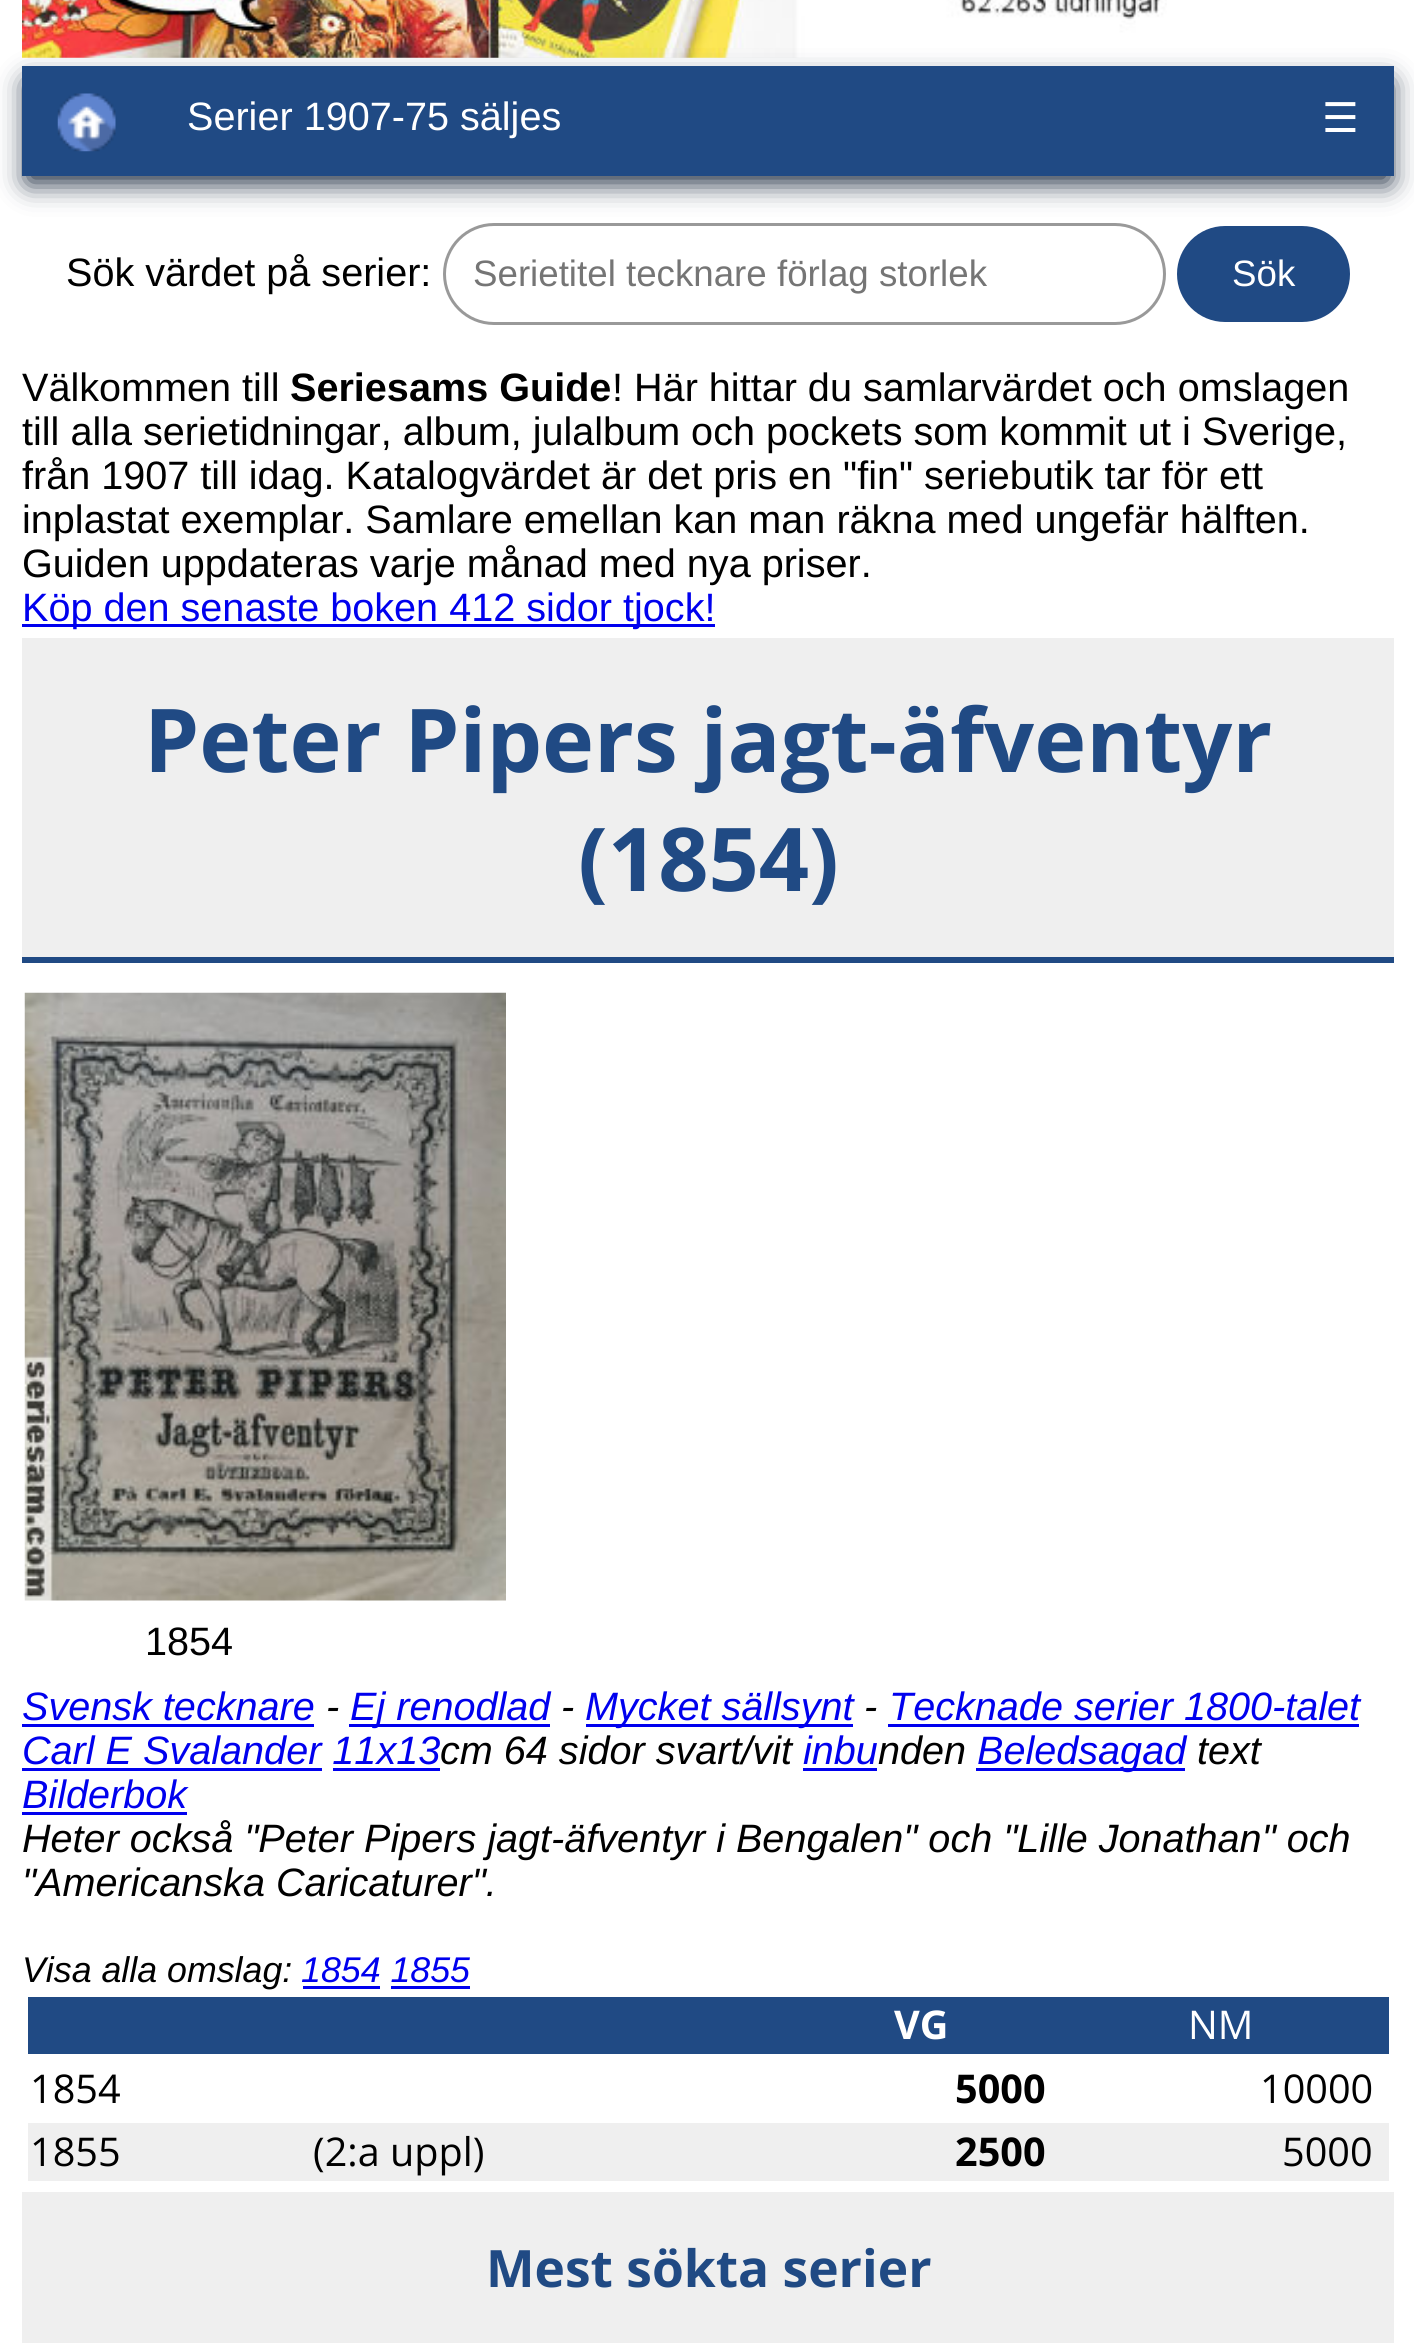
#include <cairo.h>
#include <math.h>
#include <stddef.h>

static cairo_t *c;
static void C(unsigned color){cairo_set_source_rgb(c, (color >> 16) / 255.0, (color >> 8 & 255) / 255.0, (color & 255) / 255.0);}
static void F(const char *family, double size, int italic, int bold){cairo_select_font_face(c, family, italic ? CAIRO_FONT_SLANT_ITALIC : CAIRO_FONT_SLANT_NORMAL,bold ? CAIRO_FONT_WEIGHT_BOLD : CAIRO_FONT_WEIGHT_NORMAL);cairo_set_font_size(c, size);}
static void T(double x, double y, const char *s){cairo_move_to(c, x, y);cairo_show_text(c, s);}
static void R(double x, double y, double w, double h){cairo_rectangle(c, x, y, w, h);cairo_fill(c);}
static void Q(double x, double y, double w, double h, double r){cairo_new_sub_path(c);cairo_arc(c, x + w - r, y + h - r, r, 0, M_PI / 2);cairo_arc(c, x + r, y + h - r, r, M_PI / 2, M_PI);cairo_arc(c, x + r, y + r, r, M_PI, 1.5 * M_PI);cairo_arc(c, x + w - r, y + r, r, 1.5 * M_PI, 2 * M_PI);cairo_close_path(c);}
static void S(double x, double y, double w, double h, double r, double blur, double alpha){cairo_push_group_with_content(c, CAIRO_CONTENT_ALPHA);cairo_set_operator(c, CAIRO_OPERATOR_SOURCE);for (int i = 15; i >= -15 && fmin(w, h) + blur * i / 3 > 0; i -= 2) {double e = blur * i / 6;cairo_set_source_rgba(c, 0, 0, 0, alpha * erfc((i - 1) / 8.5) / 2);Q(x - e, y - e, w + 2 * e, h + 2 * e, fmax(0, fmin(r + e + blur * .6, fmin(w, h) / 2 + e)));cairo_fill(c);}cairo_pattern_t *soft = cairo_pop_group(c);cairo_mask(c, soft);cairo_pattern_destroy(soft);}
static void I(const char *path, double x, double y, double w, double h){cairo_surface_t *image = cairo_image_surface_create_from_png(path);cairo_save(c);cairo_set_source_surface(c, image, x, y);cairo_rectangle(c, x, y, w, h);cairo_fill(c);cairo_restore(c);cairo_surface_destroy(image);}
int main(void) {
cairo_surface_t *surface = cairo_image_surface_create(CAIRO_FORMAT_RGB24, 1414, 2349);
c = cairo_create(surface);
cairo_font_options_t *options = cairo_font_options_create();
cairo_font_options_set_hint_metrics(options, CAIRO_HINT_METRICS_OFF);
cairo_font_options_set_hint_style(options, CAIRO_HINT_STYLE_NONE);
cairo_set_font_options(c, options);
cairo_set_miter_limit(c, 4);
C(0xffffff);
cairo_paint(c);
I("1.png",22,0,1145,58);
Q(444.5,224.5,720,99,49.5);
C(0x999999);
cairo_set_line_width(c,3);
cairo_stroke(c);
C(0x09192f);
S(28,83,1361,99,0,14,1);
C(0x204a84);
R(22,66,1372,110);
I("2.png",57,93,59,59);
F("Liberation Sans",39.6,0,0);
C(0xffffff);
T(187,130,"Serier 1907-75 säljes");
F("DejaVu Sans",41,0,0);
T(1322,132,"☰");
F("Liberation Sans",39.6,0,0);
C(0x000000);
T(66,286,"Sök värdet på serier:");
F("Liberation Sans",36.7,0,0);
C(0x757575);
T(473,286,"Serietitel tecknare förlag storlek");
C(0x204a84);
Q(1177,226,173,96,48);
cairo_fill(c);
C(0xffffff);
T(1232,286,"Sök");
F("Liberation Sans",39.6,0,0);
C(0x000000);
T(22,401,"Välkommen till");
F("Liberation Sans",39.6,0,1);
T(290,401,"Seriesams Guide");
F("Liberation Sans",39.6,0,0);
T(612,401,"! Här hittar du samlarvärdet och omslagen");
T(22,445,"till alla serietidningar, album, julalbum och pockets som kommit ut i Sverige,");
T(22,489,"från 1907 till idag. Katalogvärdet är det pris en \"fin\" seriebutik tar för ett");
T(22,533,"inplastat exemplar. Samlare emellan kan man räkna med ungefär hälften.");
T(22,577,"Guiden uppdateras varje månad med nya priser.");
C(0x0000ee);
R(22,624,693,3);
T(22,621,"Köp den senaste boken 412 sidor tjock!");
C(0xefefef);
R(22,638,1372,319);
C(0x204a84);
R(22,957,1372,6);
F("Open Sans",88,0,1);
T(144,772,"Peter Pipers jagt-äfventyr");
T(578,891,"(1854)");
I("3.png",24,992,482,609);
F("Liberation Sans",39.6,0,0);
C(0x000000);
T(145,1655,"1854");
F("Liberation Sans",39.6,1,0);
C(0x0000ee);
T(22,1720,"Svensk tecknare");
R(22,1724,292,3);
C(0x000000);
T(326,1720,"-");
C(0x0000ee);
R(349,1724,201,3);
T(350,1720,"Ej renodlad");
C(0x000000);
T(561,1720,"-");
C(0x0000ee);
R(586,1724,267,3);
T(585,1720,"Mycket sällsynt");
C(0x000000);
T(864,1720,"-");
C(0x0000ee);
T(889,1720,"Tecknade serier 1800-talet");
R(888,1724,471,3);
T(22,1764,"Carl E Svalander 11x13");
R(22,1768,300,3);
C(0x000000);
T(440,1764,"cm 64 sidor svart/vit");
C(0x0000ee);
T(803,1764,"inbu");
R(803,1768,74,3);
C(0x000000);
T(878,1764,"nden");
C(0x0000ee);
R(976,1768,209,3);
T(977,1764,"Beledsagad");
C(0x000000);
T(1197,1764,"text");
C(0x0000ee);
R(333,1768,107,3);
T(22,1808,"Bilderbok");
R(22,1812,165,3);
C(0x000000);
T(22,1852,"Heter också \"Peter Pipers jagt-äfventyr i Bengalen\" och \"Lille Jonathan\" och");
T(22,1896,"\"Americanska Caricaturer\".");
F("Liberation Sans",35.75,1,0);
T(22,1982,"Visa alla omslag:");
C(0x0000ee);
T(301,1982,"1854 1855");
R(303,1986,77,3);
R(391,1986,79,3);
C(0x204a84);
R(28,1997,1361,57);
F("Open Sans",39.6,0,1);
C(0xffffff);
T(894,2039,"VG");
F("Open Sans",39.6,0,0);
T(1188,2039,"NM");
C(0x000000);
T(30,2103,"1854");
F("Open Sans",39.6,0,1);
T(955,2103,"5000");
F("Open Sans",39.6,0,0);
T(1260,2103,"10000");
C(0xefefef);
R(28,2123,1361,58);
C(0x000000);
T(30,2166,"1855");
T(313,2166,"(2:a uppl)");
F("Open Sans",39.6,0,1);
T(955,2166,"2500");
F("Open Sans",39.6,0,0);
T(1282,2166,"5000");
C(0xefefef);
R(22,2192,1372,151);
F("Open Sans",51.5,0,1);
C(0x204a84);
T(486,2287,"Mest sökta serier");
cairo_surface_write_to_png(surface, "o.png");
cairo_font_options_destroy(options);
cairo_destroy(c);
cairo_surface_destroy(surface);
return 0;
}
